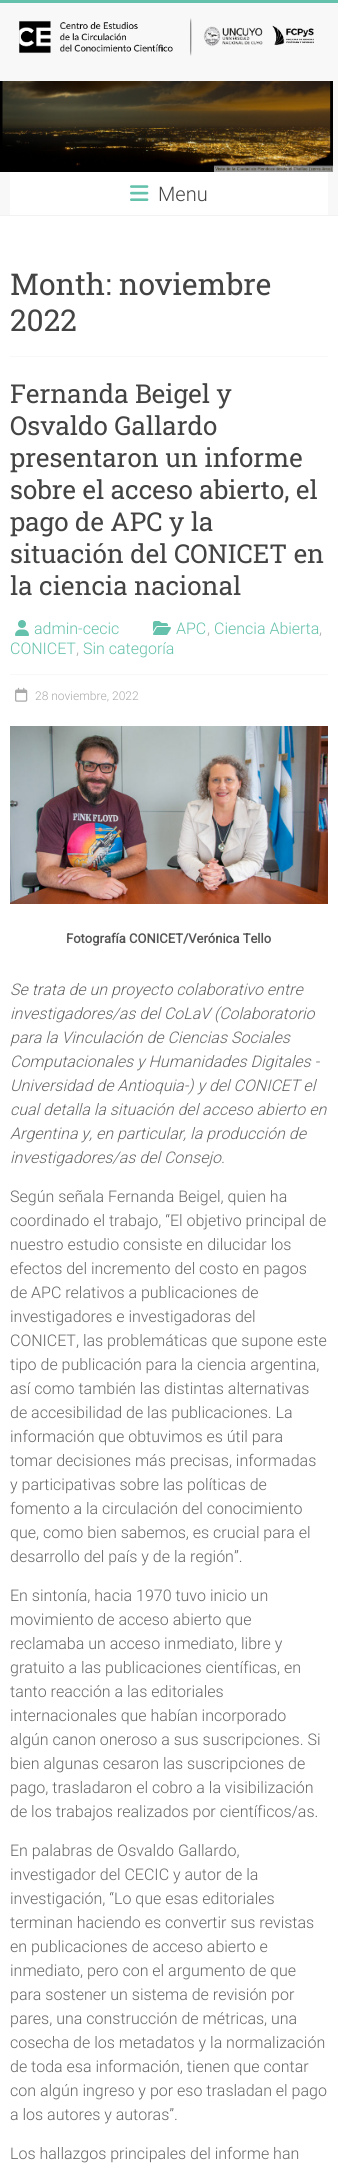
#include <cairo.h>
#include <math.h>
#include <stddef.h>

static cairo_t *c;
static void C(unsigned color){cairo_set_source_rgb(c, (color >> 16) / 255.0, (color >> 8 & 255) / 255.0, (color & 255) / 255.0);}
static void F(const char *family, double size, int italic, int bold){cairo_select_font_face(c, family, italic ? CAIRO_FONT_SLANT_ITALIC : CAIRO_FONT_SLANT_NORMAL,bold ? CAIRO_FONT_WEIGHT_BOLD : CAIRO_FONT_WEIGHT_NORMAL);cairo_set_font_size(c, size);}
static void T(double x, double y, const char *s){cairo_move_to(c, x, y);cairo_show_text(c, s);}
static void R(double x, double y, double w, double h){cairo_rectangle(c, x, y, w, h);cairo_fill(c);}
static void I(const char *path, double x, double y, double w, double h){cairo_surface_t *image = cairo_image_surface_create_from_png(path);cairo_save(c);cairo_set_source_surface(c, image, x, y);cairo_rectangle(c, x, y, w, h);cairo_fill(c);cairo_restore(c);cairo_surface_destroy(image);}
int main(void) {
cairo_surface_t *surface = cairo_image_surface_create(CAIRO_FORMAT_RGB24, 338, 2173);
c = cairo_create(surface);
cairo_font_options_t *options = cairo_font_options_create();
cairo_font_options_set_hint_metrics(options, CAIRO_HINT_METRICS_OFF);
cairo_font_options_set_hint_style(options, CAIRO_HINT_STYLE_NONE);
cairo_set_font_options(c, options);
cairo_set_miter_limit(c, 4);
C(0xffffff);
cairo_paint(c);
C(0x64c1ac);
R(0,0,338,3);
C(0xf8f8f8);
R(0,3,338,212);
C(0xf2f2f2);
R(0,215,338,1);
I("1.png",19,18,295,38);
I("2.png",0,81,333,91);
C(0xffffff);
R(10,172,318,43);
I("3.png",130,185,19,16);
F("Roboto Light",20,0,0);
C(0x444444);
T(158,201,"Menu");
C(0xf8f8f8);
R(10,356,318,1);
F("Roboto Slab",30,0,0);
C(0x444444);
T(10,295,"Month: noviembre");
T(10,331,"2022");
F("Roboto Slab",26,0,0);
T(10,403,"Fernanda Beigel y");
T(10,435,"Osvaldo Gallardo");
T(10,467,"presentaron un informe");
T(10,499,"sobre el acceso abierto, el");
T(10,531,"pago de APC y la");
T(10,563,"situación del CONICET en");
T(10,595,"la ciencia nacional");
I("4.png",153,621,18,14);
F("Roboto Light",16,0,0);
C(0x64c1ac);
T(176,634,"APC");
C(0xaaaaaa);
T(207,634,",");
C(0x64c1ac);
T(214,634,"Ciencia Abierta");
C(0xaaaaaa);
T(319,634,",");
C(0x64c1ac);
T(10,654,"CONICET");
C(0xaaaaaa);
T(76,654,",");
C(0x64c1ac);
T(83,654,"Sin categoría");
I("5.png",15,620,14,16);
T(34,634,"admin-cecic");
C(0xf8f8f8);
R(10,674,318,1);
I("6.png",15,687,13,15);
F("Roboto Light",12,0,0);
C(0xaaaaaa);
T(35,700,"28 noviembre, 2022");
I("7.png",10,726,318,178);
F("Roboto",13,0,1);
C(0x555555);
T(66,943,"Fotografía CONICET/Verónica Tello");
F("Roboto Light",16,1,0);
C(0x666666);
T(10,995,"Se trata de un proyecto colaborativo entre");
T(10,1019,"investigadores/as del CoLaV (Colaboratorio");
T(10,1043,"para la Vinculación de Ciencias Sociales");
T(10,1067,"Computacionales y Humanidades Digitales -");
T(10,1091,"Universidad de Antioquia-) y del CONICET el");
T(10,1115,"cual detalla la situación del acceso abierto en");
T(10,1139,"Argentina y, en particular, la producción de");
T(10,1163,"investigadores/as del Consejo.");
F("Roboto Light",16,0,0);
T(10,1202,"Según señala Fernanda Beigel, quien ha");
T(10,1226,"coordinado el trabajo, “El objetivo principal de");
T(10,1250,"nuestro estudio consiste en dilucidar los");
T(10,1274,"efectos del incremento del costo en pagos");
T(10,1298,"de APC relativos a publicaciones de");
T(10,1322,"investigadores e investigadoras del");
T(10,1346,"CONICET, las problemáticas que supone este");
T(10,1370,"tipo de publicación para la ciencia argentina,");
T(10,1394,"así como también las distintas alternativas");
T(10,1418,"de accesibilidad de las publicaciones. La");
T(10,1442,"información que obtuvimos es útil para");
T(10,1466,"tomar decisiones más precisas, informadas");
T(10,1490,"y participativas sobre las políticas de");
T(10,1514,"fomento a la circulación del conocimiento");
T(10,1538,"que, como bien sabemos, es crucial para el");
T(10,1562,"desarrollo del país y de la región”.");
T(10,1601,"En sintonía, hacia 1970 tuvo inicio un");
T(10,1625,"movimiento de acceso abierto que");
T(10,1649,"reclamaba un acceso inmediato, libre y");
T(10,1673,"gratuito a las publicaciones científicas, en");
T(10,1697,"tanto reacción a las editoriales");
T(10,1721,"internacionales que habían incorporado");
T(10,1745,"algún canon oneroso a sus suscripciones. Si");
T(10,1769,"bien algunas cesaron las suscripciones de");
T(10,1793,"pago, trasladaron el cobro a la visibilización");
T(10,1817,"de los trabajos realizados por científicos/as.");
T(10,1856,"En palabras de Osvaldo Gallardo,");
T(10,1880,"investigador del CECIC y autor de la");
T(10,1904,"investigación, “Lo que esas editoriales");
T(10,1928,"terminan haciendo es convertir sus revistas");
T(10,1952,"en publicaciones de acceso abierto e");
T(10,1976,"inmediato, pero con el argumento de que");
T(10,2000,"para sostener un sistema de revisión por");
T(10,2024,"pares, una construcción de métricas, una");
T(10,2048,"cosecha de los metadatos y la normalización");
T(10,2072,"de toda esa información, tienen que contar");
T(10,2096,"con algún ingreso y por eso trasladan el pago");
T(10,2120,"a los autores y autoras”.");
T(10,2159,"Los hallazgos principales del informe han");
cairo_surface_write_to_png(surface, "o.png");
cairo_font_options_destroy(options);
cairo_destroy(c);
cairo_surface_destroy(surface);
return 0;
}
